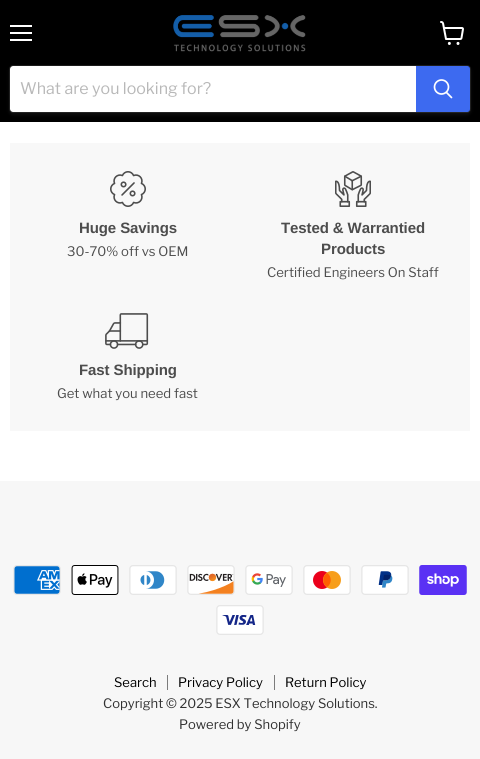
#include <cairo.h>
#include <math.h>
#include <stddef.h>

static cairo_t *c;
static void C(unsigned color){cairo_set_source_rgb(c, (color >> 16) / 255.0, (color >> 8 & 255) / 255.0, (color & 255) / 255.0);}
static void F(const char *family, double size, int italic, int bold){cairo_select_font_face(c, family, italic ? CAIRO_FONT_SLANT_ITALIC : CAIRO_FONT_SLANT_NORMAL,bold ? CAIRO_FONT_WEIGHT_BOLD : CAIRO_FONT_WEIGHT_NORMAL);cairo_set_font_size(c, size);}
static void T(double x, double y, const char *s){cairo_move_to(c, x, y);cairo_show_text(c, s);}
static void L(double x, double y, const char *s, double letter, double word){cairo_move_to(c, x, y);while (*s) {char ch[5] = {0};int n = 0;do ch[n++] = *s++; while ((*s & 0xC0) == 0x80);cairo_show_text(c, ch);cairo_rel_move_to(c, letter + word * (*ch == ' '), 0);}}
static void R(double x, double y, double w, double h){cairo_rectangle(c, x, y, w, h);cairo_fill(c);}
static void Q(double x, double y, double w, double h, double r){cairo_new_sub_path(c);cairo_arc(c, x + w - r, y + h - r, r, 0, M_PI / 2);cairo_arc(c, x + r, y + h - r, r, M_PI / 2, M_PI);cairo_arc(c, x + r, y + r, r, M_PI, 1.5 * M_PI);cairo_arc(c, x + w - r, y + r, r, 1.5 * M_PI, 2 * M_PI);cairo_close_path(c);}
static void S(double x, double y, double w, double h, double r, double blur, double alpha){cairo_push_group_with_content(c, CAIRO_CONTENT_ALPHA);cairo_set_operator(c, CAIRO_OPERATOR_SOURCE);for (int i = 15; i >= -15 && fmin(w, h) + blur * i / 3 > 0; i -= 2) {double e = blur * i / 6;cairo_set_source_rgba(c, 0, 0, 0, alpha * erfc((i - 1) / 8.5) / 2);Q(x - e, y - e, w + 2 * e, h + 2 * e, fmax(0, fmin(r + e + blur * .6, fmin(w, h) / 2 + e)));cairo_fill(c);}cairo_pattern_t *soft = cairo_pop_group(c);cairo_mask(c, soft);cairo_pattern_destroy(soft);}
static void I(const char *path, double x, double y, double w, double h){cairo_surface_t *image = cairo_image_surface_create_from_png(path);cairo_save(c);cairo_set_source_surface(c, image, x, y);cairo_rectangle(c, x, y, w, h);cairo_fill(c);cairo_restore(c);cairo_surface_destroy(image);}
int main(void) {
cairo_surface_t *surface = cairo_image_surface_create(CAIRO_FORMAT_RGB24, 480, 759);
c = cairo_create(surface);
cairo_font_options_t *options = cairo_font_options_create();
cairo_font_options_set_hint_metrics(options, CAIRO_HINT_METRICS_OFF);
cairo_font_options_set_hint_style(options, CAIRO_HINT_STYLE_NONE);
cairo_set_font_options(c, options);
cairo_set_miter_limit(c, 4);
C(0xffffff);
cairo_paint(c);
C(0x000000);
R(0,0,480,122);
C(0xffffff);
R(10,25,22,2);
R(10,32,22,2);
R(10,39,22,2);
I("1.png",440,21,24,24);
I("2.png",173,15,133,37);
C(0x808080);
S(9,67,462,48,4,1.5,.11);
Q(9.5,65.5,461,47,3.5);
cairo_set_source_rgba(c,0.502,0.502,0.502,0.2);
cairo_set_line_width(c,1);
cairo_stroke(c);
C(0xffffff);
cairo_new_path(c);
cairo_move_to(c,13,66);
cairo_line_to(c,416,66);
cairo_line_to(c,416,112);
cairo_line_to(c,13,112);
cairo_curve_to(c,11.5,112,10,110.5,10,109);
cairo_line_to(c,10,69);
cairo_curve_to(c,10,67.5,11.5,66,13,66);
cairo_close_path(c);
cairo_fill(c);
F("Libre Franklin",16,0,0);
C(0xb8b8b8);
T(20,94,"What are you looking for?");
C(0x3d6af0);
cairo_new_path(c);
cairo_move_to(c,416.5,66.5);
cairo_line_to(c,467,66.5);
cairo_curve_to(c,468.5,66.5,469.5,67.5,469.5,69);
cairo_line_to(c,469.5,109);
cairo_curve_to(c,469.5,110.5,468.5,111.5,467,111.5);
cairo_line_to(c,416.5,111.5);
cairo_close_path(c);
cairo_fill_preserve(c);
cairo_stroke(c);
cairo_new_path(c);
cairo_move_to(c,451.5,97.5);
cairo_line_to(c,446.5,92.5);
C(0xffffff);
cairo_set_line_width(c,1.7);
cairo_set_line_cap(c,CAIRO_LINE_CAP_ROUND);
cairo_stroke(c);
cairo_arc(c,441.5,87,7,0,2 * M_PI);
cairo_set_line_cap(c,CAIRO_LINE_CAP_BUTT);
cairo_stroke(c);
C(0xf8f8f8);
R(10,143,460,288);
I("3.png",110,171,36,36);
F("Arimo",15,0,1);
C(0x4d4d4d);
L(79,233,"Huge Savings",-.1,0);
F("Libre Franklin",13.1,0,0);
T(67,256,"30-70% off vs OEM");
I("4.png",335,171,36,36);
F("Arimo",15,0,1);
L(281,233,"Tested & Warrantied",-.1,0);
L(321,254,"Products",-.1,0);
F("Libre Franklin",13.1,0,0);
T(267,277,"Certified Engineers On Staff");
I("5.png",105,313,44,36);
F("Arimo",15,0,1);
L(79,375,"Fast Shipping",-.1,0);
F("Libre Franklin",13.1,0,0);
T(57,398,"Get what you need fast");
C(0xf7f7f7);
R(0,481,480,278);
I("6.png",13,565,48,30);
I("7.png",71,565,48,30);
I("8.png",129,565,48,30);
I("9.png",187,565,48,30);
I("10.png",245,565,48,30);
I("11.png",303,565,48,30);
I("12.png",361,565,48,30);
I("13.png",419,565,48,30);
I("14.png",216,605,48,30);
C(0x7c7c7c);
R(167,675,1,15);
F("Libre Franklin",13,0,0);
C(0x000000);
T(114,687,"Search");
C(0x7c7c7c);
R(274,675,1,15);
C(0x000000);
T(178,687,"Privacy Policy");
T(285,687,"Return Policy");
C(0x313131);
T(103,708,"Copyright © 2025 ESX Technology Solutions.");
T(179,729,"Powered by Shopify");
cairo_surface_write_to_png(surface, "o.png");
cairo_font_options_destroy(options);
cairo_destroy(c);
cairo_surface_destroy(surface);
return 0;
}
